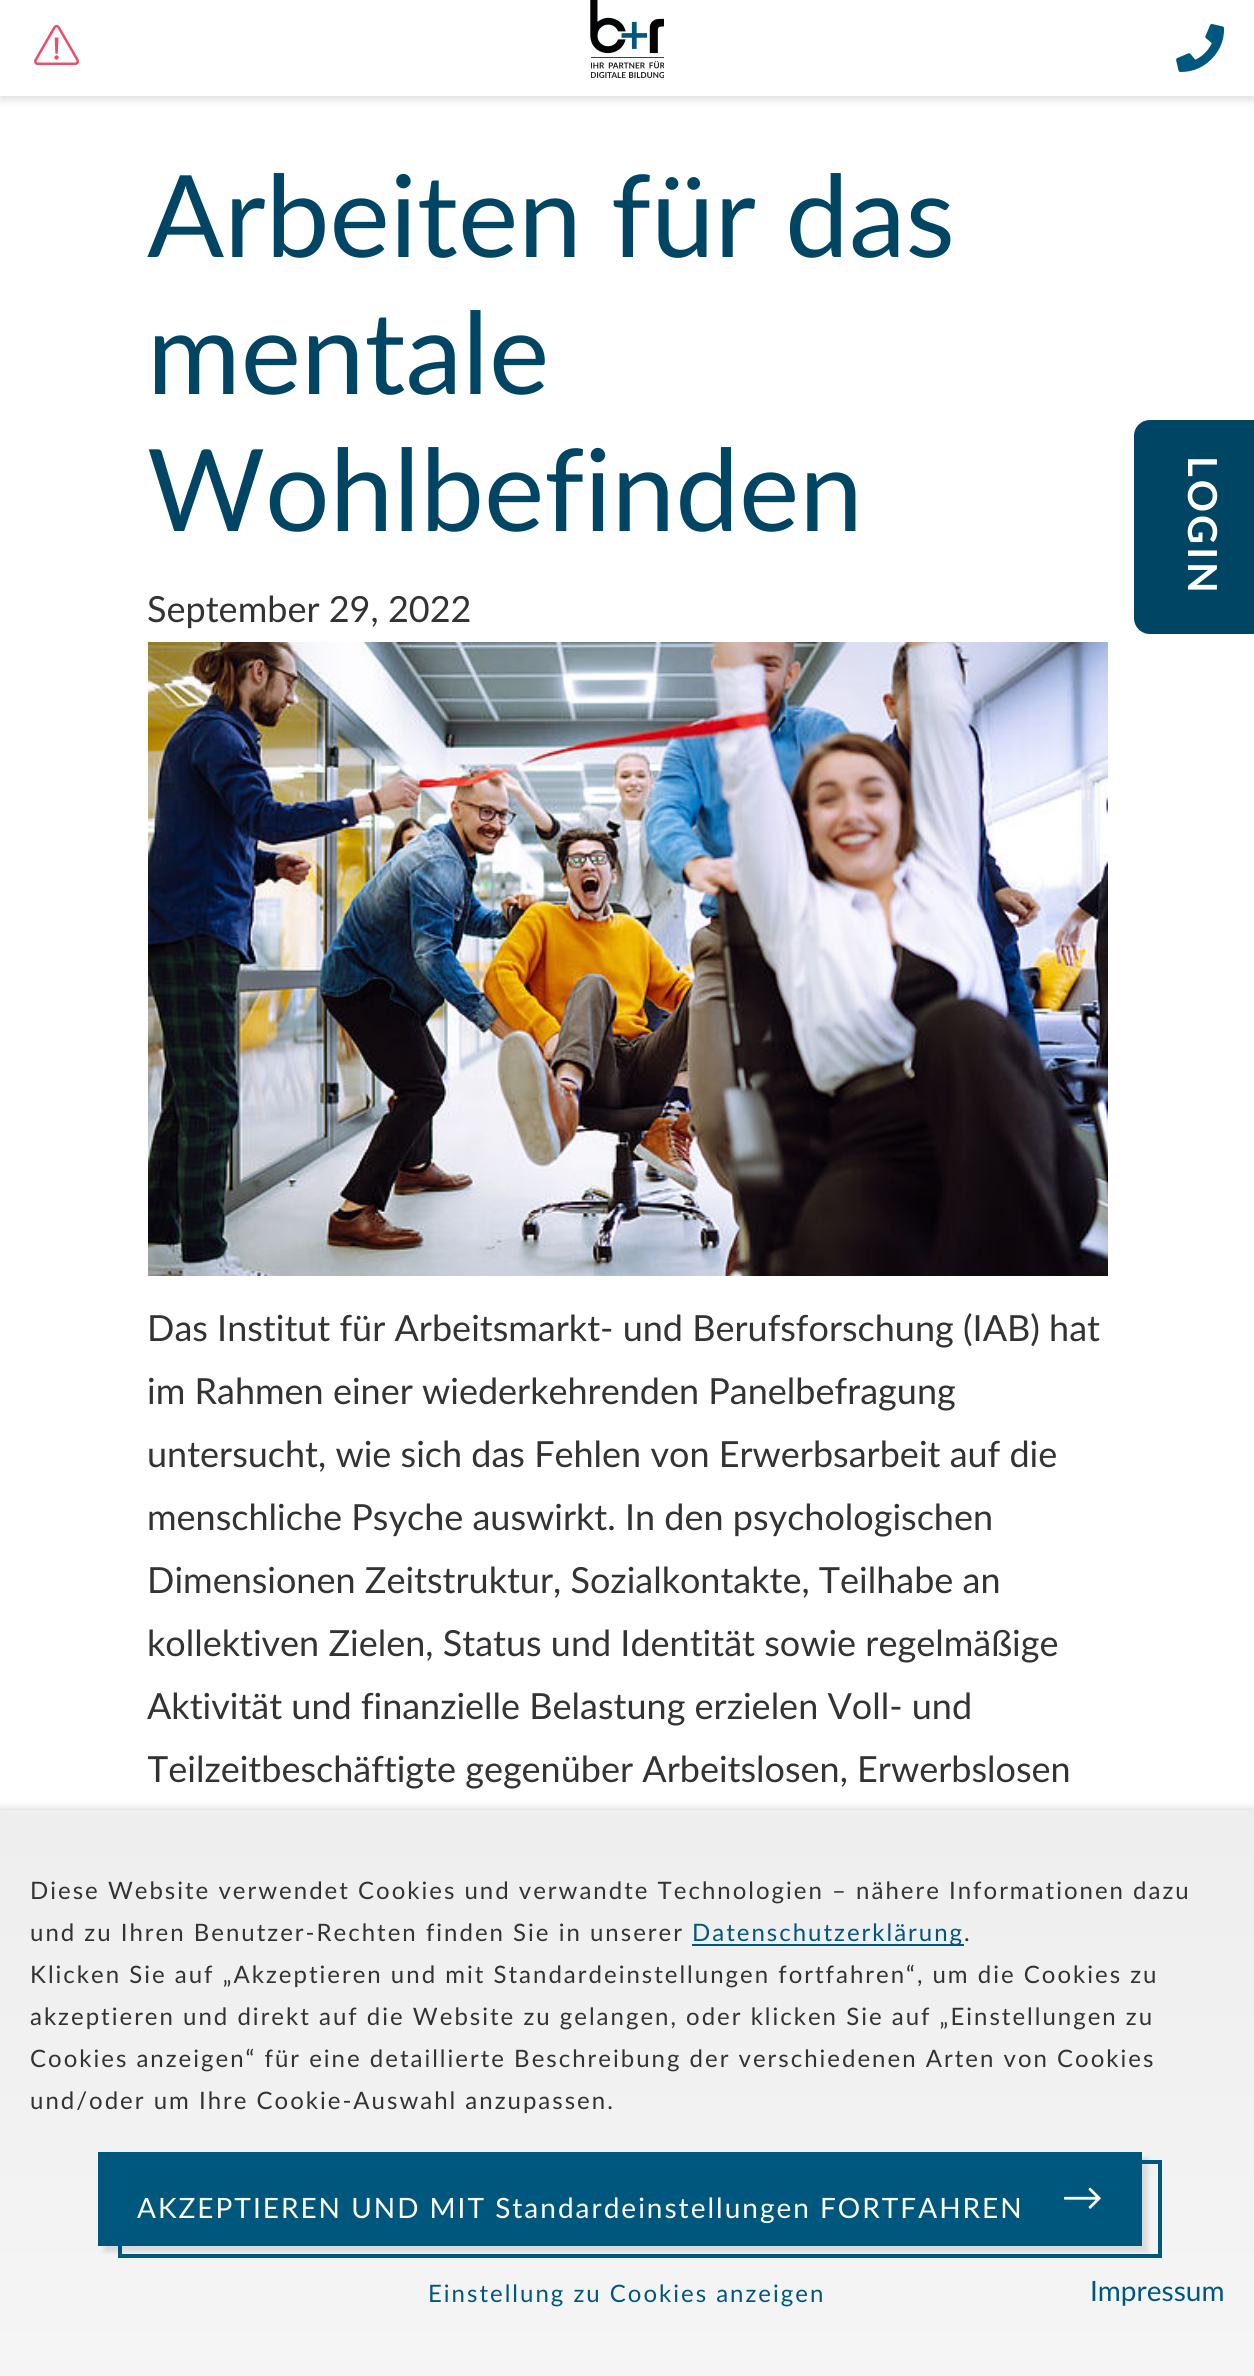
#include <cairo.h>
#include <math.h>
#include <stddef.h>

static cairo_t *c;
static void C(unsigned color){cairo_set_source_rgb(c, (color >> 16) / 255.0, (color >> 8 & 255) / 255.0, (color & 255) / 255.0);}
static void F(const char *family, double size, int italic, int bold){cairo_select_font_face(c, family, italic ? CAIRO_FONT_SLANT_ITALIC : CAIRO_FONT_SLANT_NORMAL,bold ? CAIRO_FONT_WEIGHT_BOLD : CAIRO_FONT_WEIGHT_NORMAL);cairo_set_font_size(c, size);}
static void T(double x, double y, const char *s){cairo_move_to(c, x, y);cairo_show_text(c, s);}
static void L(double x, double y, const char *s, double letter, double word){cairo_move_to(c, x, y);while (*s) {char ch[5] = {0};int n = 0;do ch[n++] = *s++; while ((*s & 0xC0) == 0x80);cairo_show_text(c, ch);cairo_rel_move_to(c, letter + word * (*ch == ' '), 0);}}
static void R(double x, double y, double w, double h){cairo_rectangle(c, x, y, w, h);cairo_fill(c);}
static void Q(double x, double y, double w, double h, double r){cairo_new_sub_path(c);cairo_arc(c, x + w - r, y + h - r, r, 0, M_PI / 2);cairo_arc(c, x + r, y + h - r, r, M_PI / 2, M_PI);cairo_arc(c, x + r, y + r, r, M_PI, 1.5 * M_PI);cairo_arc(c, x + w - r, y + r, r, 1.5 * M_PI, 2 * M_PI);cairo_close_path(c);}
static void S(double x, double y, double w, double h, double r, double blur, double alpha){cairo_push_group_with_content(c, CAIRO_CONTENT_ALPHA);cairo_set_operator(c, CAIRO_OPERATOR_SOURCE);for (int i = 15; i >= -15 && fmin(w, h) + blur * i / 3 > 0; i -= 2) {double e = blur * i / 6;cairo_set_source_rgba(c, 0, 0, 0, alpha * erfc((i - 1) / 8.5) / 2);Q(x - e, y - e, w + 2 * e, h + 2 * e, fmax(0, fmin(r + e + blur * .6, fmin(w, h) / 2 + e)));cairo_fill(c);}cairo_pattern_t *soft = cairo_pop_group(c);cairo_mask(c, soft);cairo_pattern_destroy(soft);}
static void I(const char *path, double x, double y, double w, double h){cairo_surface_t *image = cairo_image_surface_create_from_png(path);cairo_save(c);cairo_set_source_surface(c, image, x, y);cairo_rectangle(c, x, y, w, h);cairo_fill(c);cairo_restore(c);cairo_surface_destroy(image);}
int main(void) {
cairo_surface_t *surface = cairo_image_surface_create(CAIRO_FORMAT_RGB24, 1254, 2376);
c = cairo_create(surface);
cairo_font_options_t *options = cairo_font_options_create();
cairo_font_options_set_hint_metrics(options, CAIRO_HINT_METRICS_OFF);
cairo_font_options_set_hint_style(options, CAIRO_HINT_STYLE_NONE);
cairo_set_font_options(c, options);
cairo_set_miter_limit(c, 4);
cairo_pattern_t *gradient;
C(0xffffff);
cairo_paint(c);
cairo_save(c);
cairo_rectangle(c,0,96,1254,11);
cairo_clip(c);
C(0xbfbfbf);
S(0,4,1254,96,0,4,.5);
cairo_restore(c);
I("1.png",34,25,46,40);
I("2.png",590,0,74,78);
I("3.png",1176,24,49,48);
F("Lato",114,0,0);
C(0x004664);
T(147,257,"Arbeiten für das");
T(147,394,"mentale");
T(147,531,"Wohlbefinden");
F("Lato",36,0,0);
C(0x333333);
T(147,622,"September 29, 2022");
I("4.png",148,642,960,634);
T(147,1341,"Das Institut für Arbeitsmarkt- und Berufsforschung (IAB) hat");
T(147,1404,"im Rahmen einer wiederkehrenden Panelbefragung");
T(147,1467,"untersucht, wie sich das Fehlen von Erwerbsarbeit auf die");
T(147,1530,"menschliche Psyche auswirkt. In den psychologischen");
T(147,1593,"Dimensionen Zeitstruktur, Sozialkontakte, Teilhabe an");
T(147,1656,"kollektiven Zielen, Status und Identität sowie regelmäßige");
T(147,1719,"Aktivität und finanzielle Belastung erzielen Voll- und");
cairo_save(c);
cairo_rectangle(c,148,642,960,1672);
cairo_clip(c);
T(147,1782,"Teilzeitbeschäftigte gegenüber Arbeitslosen, Erwerbslosen");
cairo_restore(c);
C(0x004664);
cairo_new_path(c);
cairo_move_to(c,1150,420);
cairo_line_to(c,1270,420);
cairo_line_to(c,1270,634);
cairo_line_to(c,1150,634);
cairo_curve_to(c,1141,634,1134,627,1134,618);
cairo_line_to(c,1134,436);
cairo_curve_to(c,1134,427,1141,420,1150,420);
cairo_close_path(c);
cairo_fill(c);
F("Lato",40,0,1);
C(0xffffff);
cairo_save(c);
cairo_translate(c,1188,456);
cairo_rotate(c,90 * M_PI / 180);
L(0,0,"LOGIN",3,0);
cairo_restore(c);
C(0x000000);
S(0,1810,1254,566,0,5,.2);
gradient = cairo_pattern_create_linear(627,1810,627,2376);
cairo_pattern_add_color_stop_rgba(gradient,0,0.933,0.933,0.933,1);
cairo_pattern_add_color_stop_rgba(gradient,1,0.961,0.961,0.961,1);
cairo_set_source(c,gradient);
cairo_pattern_destroy(gradient);
R(0,1810,1254,566);
F("Lato",24,0,0);
C(0x333333);
L(30,1899,"Diese Website verwendet Cookies und verwandte Technologien – nähere Informationen dazu",2,0);
L(30,1941,"und zu Ihren Benutzer-Rechten finden Sie in unserer",2,0);
C(0x00577d);
R(692,1944,272,2);
L(692,1941,"Datenschutzerklärung",2,0);
C(0x333333);
L(964,1941,".",2,0);
L(30,1983,"Klicken Sie auf „Akzeptieren und mit Standardeinstellungen fortfahren“, um die Cookies zu",2,0);
L(30,2025,"akzeptieren und direkt auf die Website zu gelangen, oder klicken Sie auf „Einstellungen zu",2,0);
L(30,2067,"Cookies anzeigen“ für eine detaillierte Beschreibung der verschiedenen Arten von Cookies",2,0);
L(30,2109,"und/oder um Ihre Cookie-Auswahl anzupassen.",2,0);
C(0x000000);
S(104,2158,1044,94,0,2,.1);
C(0x00577d);
R(98,2152,1044,94);
cairo_rectangle(c,120,2162,1040,94);
cairo_set_line_width(c,4);
cairo_stroke(c);
F("Lato",28,0,0);
C(0xffffff);
L(137,2218,"AKZEPTIEREN UND MIT Standardeinstellungen FORTFAHREN",2,0);
I("5.png",1064,2187,37,22);
F("Lato",24,0,0);
C(0x00577d);
L(428,2302,"Einstellung zu Cookies anzeigen",2,0);
F("Lato",28,0,0);
T(1090,2301,"Impressum");
cairo_surface_write_to_png(surface, "o.png");
cairo_font_options_destroy(options);
cairo_destroy(c);
cairo_surface_destroy(surface);
return 0;
}
